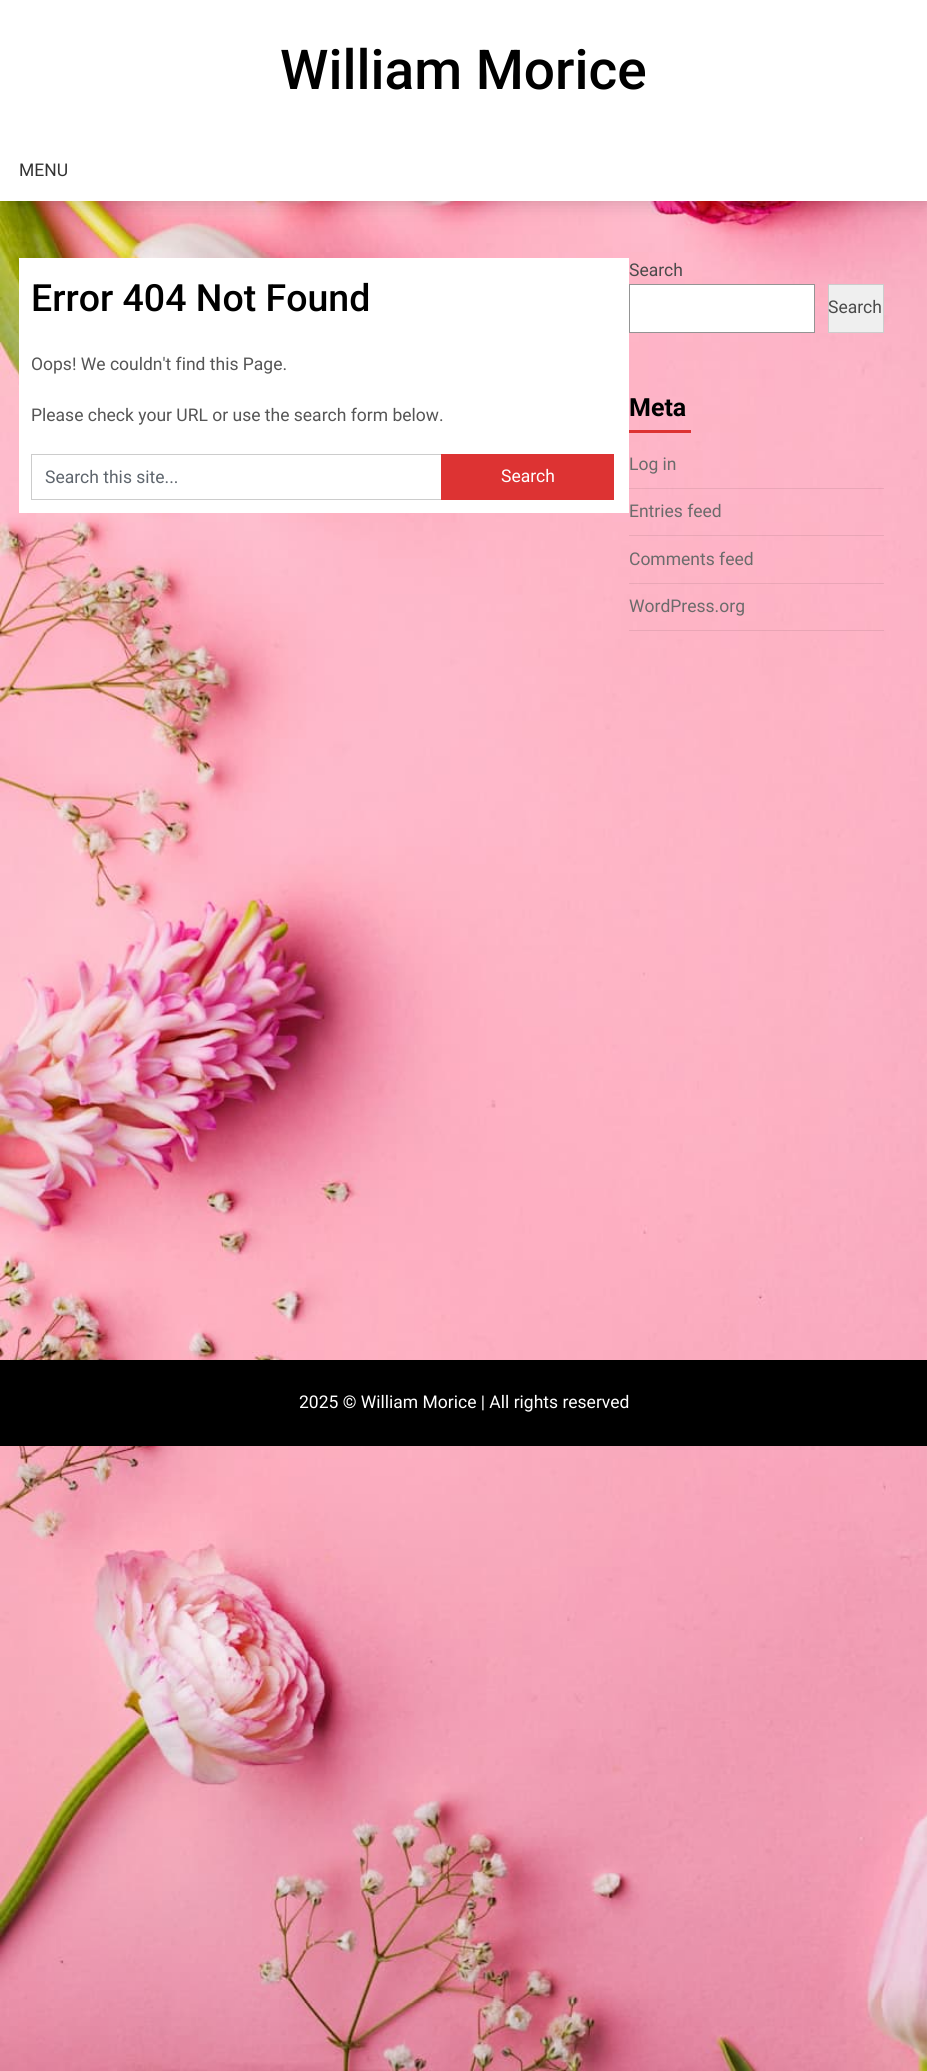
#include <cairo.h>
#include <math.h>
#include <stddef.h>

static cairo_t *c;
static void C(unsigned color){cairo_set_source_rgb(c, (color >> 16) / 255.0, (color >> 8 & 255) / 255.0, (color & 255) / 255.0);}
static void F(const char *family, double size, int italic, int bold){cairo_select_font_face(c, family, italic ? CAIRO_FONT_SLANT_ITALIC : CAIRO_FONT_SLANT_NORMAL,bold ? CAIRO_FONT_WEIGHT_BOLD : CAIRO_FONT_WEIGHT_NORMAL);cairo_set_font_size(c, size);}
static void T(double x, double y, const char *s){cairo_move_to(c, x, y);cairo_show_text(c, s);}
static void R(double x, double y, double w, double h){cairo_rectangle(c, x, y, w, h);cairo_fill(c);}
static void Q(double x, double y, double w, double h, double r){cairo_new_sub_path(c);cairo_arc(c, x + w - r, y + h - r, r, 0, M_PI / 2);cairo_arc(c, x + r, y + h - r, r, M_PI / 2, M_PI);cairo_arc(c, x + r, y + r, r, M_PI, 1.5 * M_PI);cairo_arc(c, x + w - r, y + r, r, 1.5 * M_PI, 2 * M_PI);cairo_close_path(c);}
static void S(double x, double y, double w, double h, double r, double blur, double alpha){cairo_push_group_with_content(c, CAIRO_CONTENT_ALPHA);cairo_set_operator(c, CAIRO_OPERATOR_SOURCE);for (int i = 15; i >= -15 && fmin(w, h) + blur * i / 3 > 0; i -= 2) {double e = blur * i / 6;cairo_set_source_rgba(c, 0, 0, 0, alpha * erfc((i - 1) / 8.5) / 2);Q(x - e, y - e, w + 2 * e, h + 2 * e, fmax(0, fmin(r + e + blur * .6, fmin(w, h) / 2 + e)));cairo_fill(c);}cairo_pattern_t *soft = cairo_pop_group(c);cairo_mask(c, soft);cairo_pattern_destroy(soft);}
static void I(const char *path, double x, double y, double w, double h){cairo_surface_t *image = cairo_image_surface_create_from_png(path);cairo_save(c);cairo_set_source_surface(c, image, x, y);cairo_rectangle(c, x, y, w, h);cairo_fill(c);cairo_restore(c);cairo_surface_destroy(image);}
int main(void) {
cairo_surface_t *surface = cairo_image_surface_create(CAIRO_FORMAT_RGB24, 927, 2071);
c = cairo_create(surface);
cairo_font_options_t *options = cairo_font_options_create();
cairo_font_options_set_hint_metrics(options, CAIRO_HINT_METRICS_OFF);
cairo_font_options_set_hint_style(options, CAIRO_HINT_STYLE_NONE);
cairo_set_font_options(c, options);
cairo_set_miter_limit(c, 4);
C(0xffffff);
cairo_paint(c);
I("1.png",0,201,927,1870);
C(0x000000);
S(0,0,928,201,0,9.5,.2);
C(0xffffff);
R(0,0,927,201);
F("Roboto Medium",55,0,0);
C(0x000000);
T(280,89,"William Morice");
F("Roboto",17.5,0,0);
C(0x333333);
T(19,176,"MENU");
C(0xffffff);
R(19,258,610,255);
F("Roboto Medium",37.5,0,0);
C(0x000000);
T(31,311,"Error 404 Not Found");
F("Roboto",17.5,0,0);
C(0x555555);
T(31,370,"Oops! We couldn't find this Page.");
T(31,421,"Please check your URL or use the search form below.");
C(0xcccccc);
R(31,454,410,1);
R(31,499,410,1);
R(31,454,1,46);
C(0x5e656d);
T(45,483,"Search this site...");
C(0xdd3333);
R(441,454,173,46);
C(0xffffff);
T(501,482,"Search");
C(0x4a4a4a);
T(629,276,"Search");
C(0xffffff);
cairo_rectangle(c,629.5,284.5,185,48);
cairo_fill_preserve(c);
C(0x949494);
cairo_set_line_width(c,1);
cairo_stroke(c);
C(0xefefef);
cairo_rectangle(c,828.5,284.5,55,48);
cairo_fill_preserve(c);
C(0xcccccc);
cairo_stroke(c);
C(0x4a4a4a);
T(828,313,"Search");
F("Roboto",25,0,1);
C(0x000000);
T(629,416,"Meta");
C(0xdd3333);
R(629,430,62,3);
cairo_set_source_rgba(c,0,0,0,0.08);
R(629,488,255,1);
F("Roboto",17.5,0,0);
C(0x6b6b6b);
T(629,470,"Log in");
cairo_set_source_rgba(c,0,0,0,0.08);
R(629,535,255,1);
C(0x6b6b6b);
T(629,517,"Entries feed");
cairo_set_source_rgba(c,0,0,0,0.08);
R(629,583,255,1);
C(0x6b6b6b);
T(629,565,"Comments feed");
cairo_set_source_rgba(c,0,0,0,0.08);
R(629,630,255,1);
C(0x6b6b6b);
T(629,612,"WordPress.org");
C(0x000000);
R(0,1360,927,86);
C(0xffffff);
T(299,1408,"2025 © William Morice | All rights reserved");
cairo_surface_write_to_png(surface, "o.png");
cairo_font_options_destroy(options);
cairo_destroy(c);
cairo_surface_destroy(surface);
return 0;
}
